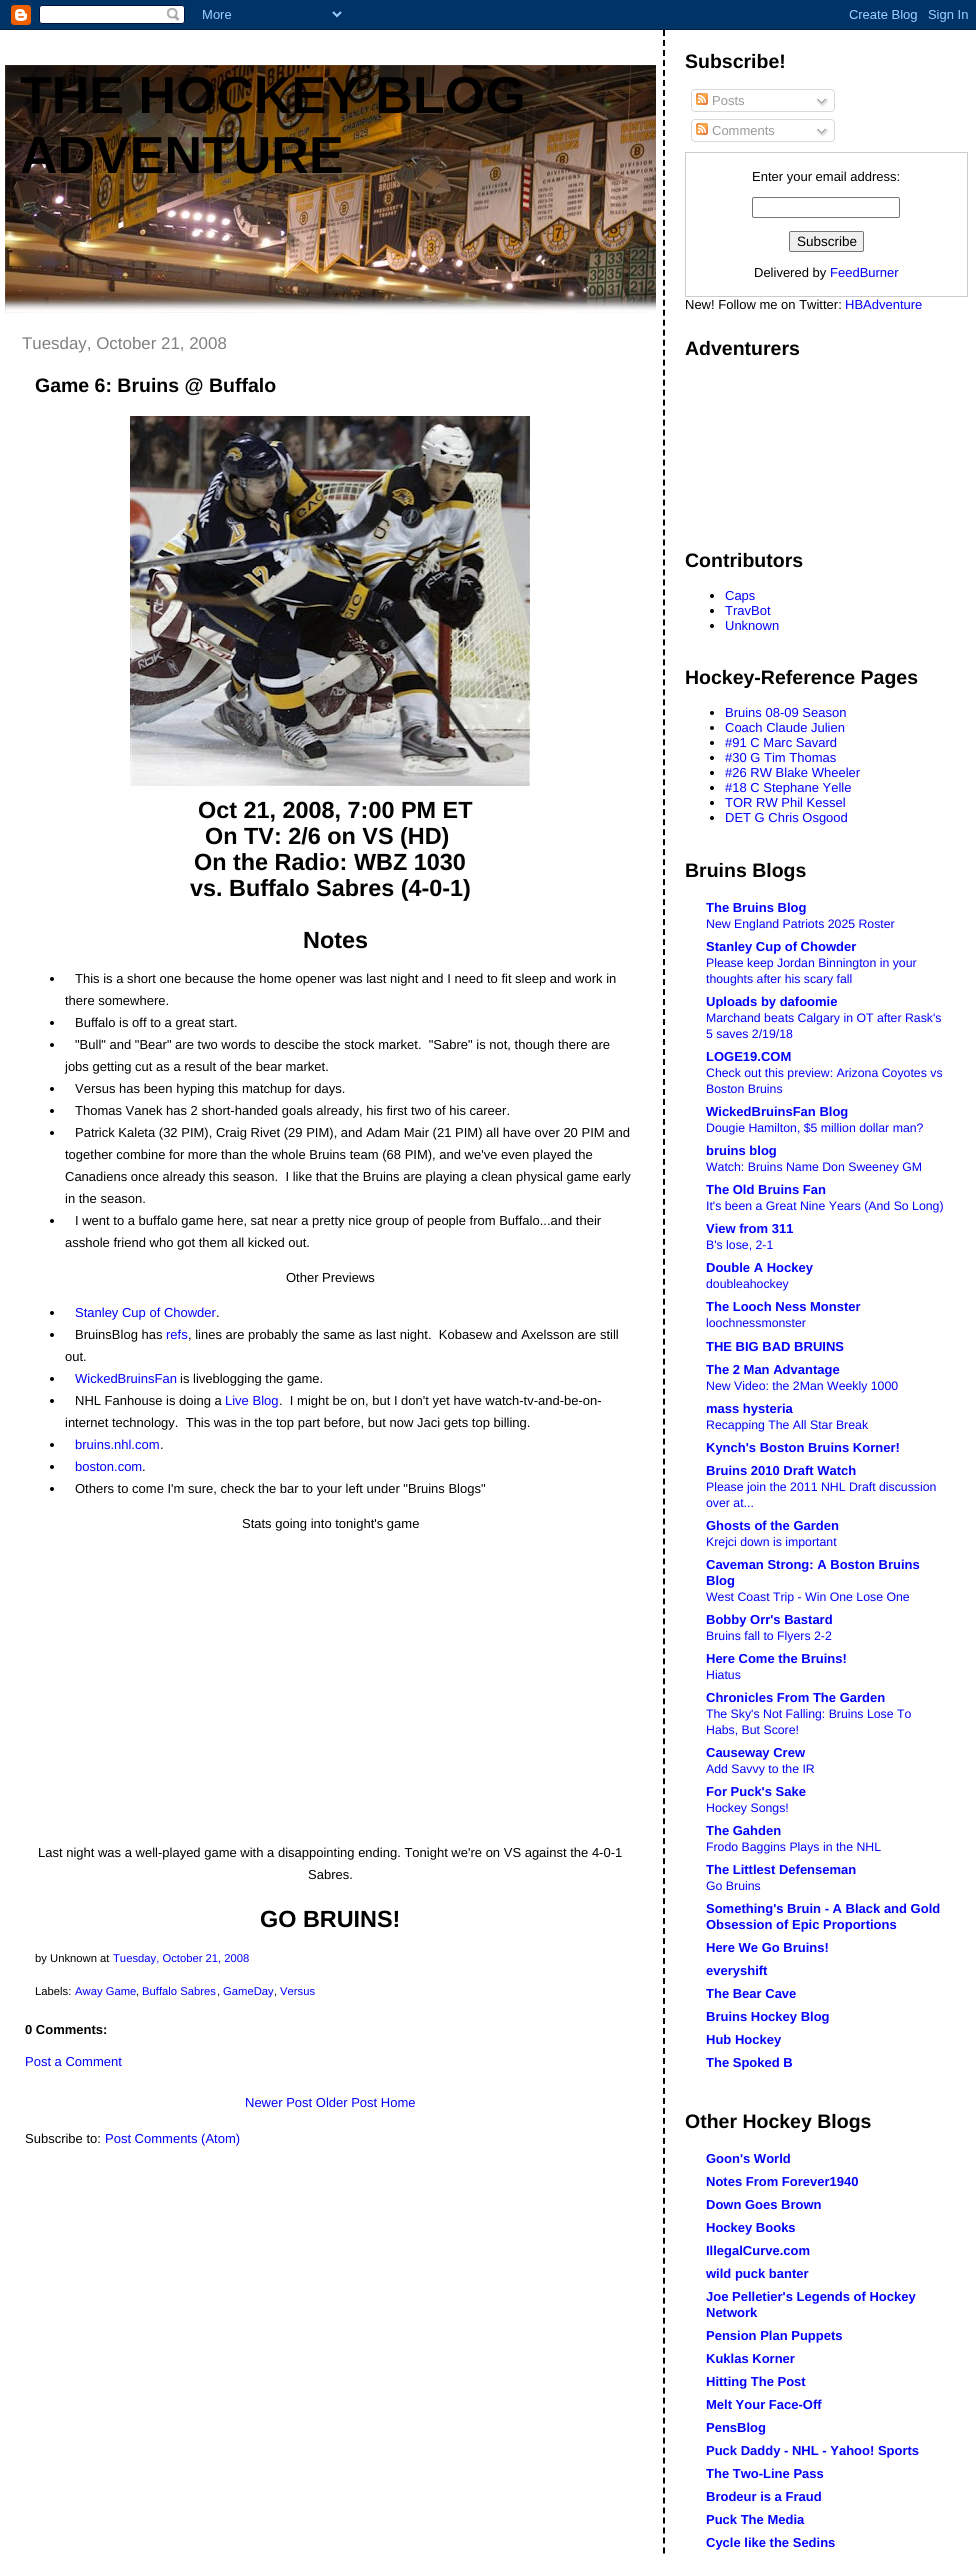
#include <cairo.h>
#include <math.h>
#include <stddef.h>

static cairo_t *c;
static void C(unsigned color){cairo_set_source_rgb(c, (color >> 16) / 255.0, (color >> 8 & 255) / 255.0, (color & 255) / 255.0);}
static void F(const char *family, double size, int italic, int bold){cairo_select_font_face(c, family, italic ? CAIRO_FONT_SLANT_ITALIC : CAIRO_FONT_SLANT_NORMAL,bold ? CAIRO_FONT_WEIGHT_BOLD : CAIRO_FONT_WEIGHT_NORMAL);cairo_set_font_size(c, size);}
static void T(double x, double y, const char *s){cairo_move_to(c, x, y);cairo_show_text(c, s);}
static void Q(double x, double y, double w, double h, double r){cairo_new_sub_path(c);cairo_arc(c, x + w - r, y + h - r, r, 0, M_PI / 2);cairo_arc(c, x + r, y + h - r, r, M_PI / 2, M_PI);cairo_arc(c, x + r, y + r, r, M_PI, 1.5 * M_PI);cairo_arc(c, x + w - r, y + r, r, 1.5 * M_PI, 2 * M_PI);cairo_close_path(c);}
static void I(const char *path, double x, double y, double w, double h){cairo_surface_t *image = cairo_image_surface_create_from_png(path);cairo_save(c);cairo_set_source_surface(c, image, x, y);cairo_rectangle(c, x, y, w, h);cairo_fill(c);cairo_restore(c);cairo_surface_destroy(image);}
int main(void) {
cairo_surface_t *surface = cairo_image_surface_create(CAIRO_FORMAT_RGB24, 976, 2557);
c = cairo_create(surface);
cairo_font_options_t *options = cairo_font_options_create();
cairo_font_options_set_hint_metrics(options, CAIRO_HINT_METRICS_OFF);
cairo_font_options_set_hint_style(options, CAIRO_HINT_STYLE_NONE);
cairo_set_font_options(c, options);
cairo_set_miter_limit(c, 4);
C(0xffffff);
cairo_paint(c);
I("1.png",0,0,976,30);
I("2.png",5,65,651,248);
F("Liberation Sans",52,0,1);
C(0x000000);
T(20,113,"THE HOCKEY BLOG");
T(20,173,"ADVENTURE");
F("Liberation Sans",16.9,0,0);
C(0x808080);
T(22,349,"Tuesday, October 21, 2008");
F("Liberation Sans",19.5,0,1);
C(0x000000);
T(35,392,"Game 6: Bruins @ Buffalo");
I("3.png",130,416,400,370);
F("Liberation Sans",23.4,0,1);
T(198,818,"Oct 21, 2008, 7:00 PM ET");
T(205,844,"On TV: 2/6 on VS (HD)");
T(194,870,"On the Radio: WBZ 1030");
T(190,896,"vs. Buffalo Sabres (4-0-1)");
T(303,948,"Notes");
cairo_new_path(c);
cairo_arc(c,52,979,2,0,2 * M_PI);
cairo_fill(c);
F("Liberation Sans",13,0,0);
T(75,983,"This is a short one because the home opener was last night and I need to fit sleep and work in");
T(65,1005,"there somewhere.");
cairo_new_path(c);
cairo_arc(c,52,1023,2,0,2 * M_PI);
cairo_fill(c);
T(75,1027,"Buffalo is off to a great start.");
cairo_new_path(c);
cairo_arc(c,52,1045,2,0,2 * M_PI);
cairo_fill(c);
T(75,1049,"\"Bull\" and \"Bear\" are two words to descibe the stock market.  \"Sabre\" is not, though there are");
T(65,1071,"jobs getting cut as a result of the bear market.");
cairo_new_path(c);
cairo_arc(c,52,1089,2,0,2 * M_PI);
cairo_fill(c);
T(75,1093,"Versus has been hyping this matchup for days.");
cairo_new_path(c);
cairo_arc(c,52,1111,2,0,2 * M_PI);
cairo_fill(c);
T(75,1115,"Thomas Vanek has 2 short-handed goals already, his first two of his career.");
cairo_new_path(c);
cairo_arc(c,52,1133,2,0,2 * M_PI);
cairo_fill(c);
T(75,1137,"Patrick Kaleta (32 PIM), Craig Rivet (29 PIM), and Adam Mair (21 PIM) all have over 20 PIM and");
T(65,1159,"together combine for more than the whole Bruins team (68 PIM), and we've even played the");
T(65,1181,"Canadiens once already this season.  I like that the Bruins are playing a clean physical game early");
T(65,1203,"in the season.");
cairo_new_path(c);
cairo_arc(c,52,1221,2,0,2 * M_PI);
cairo_fill(c);
T(75,1225,"I went to a buffalo game here, sat near a pretty nice group of people from Buffalo...and their");
T(65,1247,"asshole friend who got them all kicked out.");
T(286,1282,"Other Previews");
cairo_new_path(c);
cairo_arc(c,52,1313,2,0,2 * M_PI);
cairo_fill(c);
C(0x0000ff);
T(75,1317,"Stanley Cup of Chowder");
C(0x000000);
T(216,1317,".");
cairo_new_path(c);
cairo_arc(c,52,1335,2,0,2 * M_PI);
cairo_fill(c);
T(75,1339,"BruinsBlog has");
C(0x0000ff);
T(166,1339,"refs");
C(0x000000);
T(188,1339,", lines are probably the same as last night.  Kobasew and Axelsson are still");
T(65,1361,"out.");
cairo_new_path(c);
cairo_arc(c,52,1379,2,0,2 * M_PI);
cairo_fill(c);
C(0x0000ff);
T(75,1383,"WickedBruinsFan");
C(0x000000);
T(180,1383,"is liveblogging the game.");
cairo_new_path(c);
cairo_arc(c,52,1401,2,0,2 * M_PI);
cairo_fill(c);
T(75,1405,"NHL Fanhouse is doing a");
C(0x0000ff);
T(225,1405,"Live Blog");
C(0x000000);
T(279,1405,".  I might be on, but I don't yet have watch-tv-and-be-on-");
T(65,1427,"internet technology.  This was in the top part before, but now Jaci gets top billing.");
cairo_new_path(c);
cairo_arc(c,52,1445,2,0,2 * M_PI);
cairo_fill(c);
C(0x0000ff);
T(75,1449,"bruins.nhl.com");
C(0x000000);
T(160,1449,".");
cairo_new_path(c);
cairo_arc(c,52,1467,2,0,2 * M_PI);
cairo_fill(c);
C(0x0000ff);
T(75,1471,"boston.com");
C(0x000000);
T(142,1471,".");
cairo_new_path(c);
cairo_arc(c,52,1489,2,0,2 * M_PI);
cairo_fill(c);
T(75,1493,"Others to come I'm sure, check the bar to your left under \"Bruins Blogs\"");
T(242,1528,"Stats going into tonight's game");
T(38,1857,"Last night was a well-played game with a disappointing ending. Tonight we're on VS against the 4-0-1");
T(308,1879,"Sabres.");
F("Liberation Sans",23.4,0,1);
T(260,1927,"GO BRUINS!");
F("Liberation Sans",11.25,0,0);
T(35,1962,"by Unknown at");
C(0x0000ff);
T(113,1962,"Tuesday, October 21, 2008");
C(0x000000);
T(35,1995,"Labels:");
C(0x0000ff);
T(75,1995,"Away Game");
C(0x000000);
T(136,1995,",");
C(0x0000ff);
T(142,1995,"Buffalo Sabres");
C(0x000000);
T(217,1995,",");
C(0x0000ff);
T(223,1995,"GameDay");
C(0x000000);
T(274,1995,",");
C(0x0000ff);
T(280,1995,"Versus");
F("Liberation Sans",13,0,1);
C(0x000000);
T(25,2034,"0 Comments:");
F("Liberation Sans",13,0,0);
C(0x0000ff);
T(25,2066,"Post a Comment");
T(245,2107,"Newer Post Older Post Home");
C(0x000000);
T(25,2143,"Subscribe to:");
C(0x0000ff);
T(105,2143,"Post Comments (Atom)");
cairo_new_path(c);
cairo_move_to(c,664,30);
cairo_line_to(c,664,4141);
C(0x000000);
cairo_set_dash(c,(double[]){6,3.99},2,0);
cairo_stroke(c);
F("Liberation Sans",19.5,0,1);
T(685,68,"Subscribe!");
I("4.png",691,89,144,20);
I("5.png",696,93,12,12);
F("Liberation Sans",13,0,0);
C(0x999999);
T(712,105,"Posts");
I("6.png",816,98,13,9);
I("7.png",691,109,144,3);
I("4.png",691,119,144,20);
I("5.png",696,123,12,12);
T(712,135,"Comments");
I("6.png",816,128,13,9);
I("7.png",691,139,144,3);
cairo_rectangle(c,685.5,152.5,282,144);
C(0xcccccc);
cairo_set_line_width(c,1);
cairo_set_dash(c,NULL,0,0);
cairo_stroke(c);
C(0x000000);
T(752,181,"Enter your email address:");
Q(752.5,197.5,147,20,1.5);
C(0x767676);
cairo_stroke(c);
C(0xefefef);
Q(789.5,231.5,74,20,1.5);
cairo_fill_preserve(c);
C(0x767676);
cairo_stroke(c);
F("Liberation Sans",13.5,0,0);
C(0x000000);
T(797,246,"Subscribe");
F("Liberation Sans",13,0,0);
T(754,277,"Delivered by");
C(0x0000ff);
T(830,277,"FeedBurner");
C(0x000000);
T(685,309,"New! Follow me on Twitter:");
C(0x0000ff);
T(845,309,"HBAdventure");
F("Liberation Sans",19.5,0,1);
C(0x000000);
T(685,355,"Adventurers");
T(685,567,"Contributors");
cairo_new_path(c);
cairo_arc(c,712,596,2,0,2 * M_PI);
cairo_fill(c);
F("Liberation Sans",13,0,0);
C(0x0000ff);
T(725,600,"Caps");
C(0x000000);
cairo_new_path(c);
cairo_arc(c,712,611,2,0,2 * M_PI);
cairo_fill(c);
C(0x0000ff);
T(725,615,"TravBot");
C(0x000000);
cairo_new_path(c);
cairo_arc(c,712,626,2,0,2 * M_PI);
cairo_fill(c);
C(0x0000ff);
T(725,630,"Unknown");
F("Liberation Sans",19.5,0,1);
C(0x000000);
T(685,684,"Hockey-Reference Pages");
cairo_new_path(c);
cairo_arc(c,712,713,2,0,2 * M_PI);
cairo_fill(c);
F("Liberation Sans",13,0,0);
C(0x0000ff);
T(725,717,"Bruins 08-09 Season");
C(0x000000);
cairo_new_path(c);
cairo_arc(c,712,728,2,0,2 * M_PI);
cairo_fill(c);
C(0x0000ff);
T(725,732,"Coach Claude Julien");
C(0x000000);
cairo_new_path(c);
cairo_arc(c,712,743,2,0,2 * M_PI);
cairo_fill(c);
C(0x0000ff);
T(725,747,"#91 C Marc Savard");
C(0x000000);
cairo_new_path(c);
cairo_arc(c,712,758,2,0,2 * M_PI);
cairo_fill(c);
C(0x0000ff);
T(725,762,"#30 G Tim Thomas");
C(0x000000);
cairo_new_path(c);
cairo_arc(c,712,773,2,0,2 * M_PI);
cairo_fill(c);
C(0x0000ff);
T(725,777,"#26 RW Blake Wheeler");
C(0x000000);
cairo_new_path(c);
cairo_arc(c,712,788,2,0,2 * M_PI);
cairo_fill(c);
C(0x0000ff);
T(725,792,"#18 C Stephane Yelle");
C(0x000000);
cairo_new_path(c);
cairo_arc(c,712,803,2,0,2 * M_PI);
cairo_fill(c);
C(0x0000ff);
T(725,807,"TOR RW Phil Kessel");
C(0x000000);
cairo_new_path(c);
cairo_arc(c,712,818,2,0,2 * M_PI);
cairo_fill(c);
C(0x0000ff);
T(725,822,"DET G Chris Osgood");
F("Liberation Sans",19.5,0,1);
C(0x000000);
T(685,877,"Bruins Blogs");
F("Liberation Sans",13,0,1);
C(0x0000ff);
T(706,912,"The Bruins Blog");
F("Liberation Sans",12.3,0,0);
T(706,928,"New England Patriots 2025 Roster");
F("Liberation Sans",13,0,1);
T(706,951,"Stanley Cup of Chowder");
F("Liberation Sans",12.3,0,0);
T(706,967,"Please keep Jordan Binnington in your");
T(706,983,"thoughts after his scary fall");
F("Liberation Sans",13,0,1);
T(706,1006,"Uploads by dafoomie");
F("Liberation Sans",12.3,0,0);
T(706,1022,"Marchand beats Calgary in OT after Rask's");
T(706,1038,"5 saves 2/19/18");
F("Liberation Sans",13,0,1);
T(706,1061,"LOGE19.COM");
F("Liberation Sans",12.3,0,0);
T(706,1077,"Check out this preview: Arizona Coyotes vs");
T(706,1093,"Boston Bruins");
F("Liberation Sans",13,0,1);
T(706,1116,"WickedBruinsFan Blog");
F("Liberation Sans",12.3,0,0);
T(706,1132,"Dougie Hamilton, $5 million dollar man?");
F("Liberation Sans",13,0,1);
T(706,1155,"bruins blog");
F("Liberation Sans",12.3,0,0);
T(706,1171,"Watch: Bruins Name Don Sweeney GM");
F("Liberation Sans",13,0,1);
T(706,1194,"The Old Bruins Fan");
F("Liberation Sans",12.3,0,0);
T(706,1210,"It's been a Great Nine Years (And So Long)");
F("Liberation Sans",13,0,1);
T(706,1233,"View from 311");
F("Liberation Sans",12.3,0,0);
T(706,1249,"B's lose, 2-1");
F("Liberation Sans",13,0,1);
T(706,1272,"Double A Hockey");
F("Liberation Sans",12.3,0,0);
T(706,1288,"doubleahockey");
F("Liberation Sans",13,0,1);
T(706,1311,"The Looch Ness Monster");
F("Liberation Sans",12.3,0,0);
T(706,1327,"loochnessmonster");
F("Liberation Sans",13,0,1);
T(706,1351,"THE BIG BAD BRUINS");
T(706,1374,"The 2 Man Advantage");
F("Liberation Sans",12.3,0,0);
T(706,1390,"New Video: the 2Man Weekly 1000");
F("Liberation Sans",13,0,1);
T(706,1413,"mass hysteria");
F("Liberation Sans",12.3,0,0);
T(706,1429,"Recapping The All Star Break");
F("Liberation Sans",13,0,1);
T(706,1452,"Kynch's Boston Bruins Korner!");
T(706,1475,"Bruins 2010 Draft Watch");
F("Liberation Sans",12.3,0,0);
T(706,1491,"Please join the 2011 NHL Draft discussion");
T(706,1507,"over at...");
F("Liberation Sans",13,0,1);
T(706,1530,"Ghosts of the Garden");
F("Liberation Sans",12.3,0,0);
T(706,1546,"Krejci down is important");
F("Liberation Sans",13,0,1);
T(706,1569,"Caveman Strong: A Boston Bruins");
T(706,1585,"Blog");
F("Liberation Sans",12.3,0,0);
T(706,1601,"West Coast Trip - Win One Lose One");
F("Liberation Sans",13,0,1);
T(706,1624,"Bobby Orr's Bastard");
F("Liberation Sans",12.3,0,0);
T(706,1640,"Bruins fall to Flyers 2-2");
F("Liberation Sans",13,0,1);
T(706,1663,"Here Come the Bruins!");
F("Liberation Sans",12.3,0,0);
T(706,1679,"Hiatus");
F("Liberation Sans",13,0,1);
T(706,1702,"Chronicles From The Garden");
F("Liberation Sans",12.3,0,0);
T(706,1718,"The Sky's Not Falling: Bruins Lose To");
T(706,1734,"Habs, But Score!");
F("Liberation Sans",13,0,1);
T(706,1757,"Causeway Crew");
F("Liberation Sans",12.3,0,0);
T(706,1773,"Add Savvy to the IR");
F("Liberation Sans",13,0,1);
T(706,1796,"For Puck's Sake");
F("Liberation Sans",12.3,0,0);
T(706,1812,"Hockey Songs!");
F("Liberation Sans",13,0,1);
T(706,1835,"The Gahden");
F("Liberation Sans",12.3,0,0);
T(706,1851,"Frodo Baggins Plays in the NHL");
F("Liberation Sans",13,0,1);
T(706,1874,"The Littlest Defenseman");
F("Liberation Sans",12.3,0,0);
T(706,1890,"Go Bruins");
F("Liberation Sans",13,0,1);
T(706,1913,"Something's Bruin - A Black and Gold");
T(706,1929,"Obsession of Epic Proportions");
T(706,1952,"Here We Go Bruins!");
T(706,1975,"everyshift");
T(706,1998,"The Bear Cave");
T(706,2021,"Bruins Hockey Blog");
T(706,2044,"Hub Hockey");
T(706,2067,"The Spoked B");
F("Liberation Sans",19.5,0,1);
C(0x000000);
T(685,2128,"Other Hockey Blogs");
F("Liberation Sans",13,0,1);
C(0x0000ff);
T(706,2163,"Goon's World");
T(706,2186,"Notes From Forever1940");
T(706,2209,"Down Goes Brown");
T(706,2232,"Hockey Books");
T(706,2255,"IllegalCurve.com");
T(706,2278,"wild puck banter");
T(706,2301,"Joe Pelletier's Legends of Hockey");
T(706,2317,"Network");
T(706,2340,"Pension Plan Puppets");
T(706,2363,"Kuklas Korner");
T(706,2386,"Hitting The Post");
T(706,2409,"Melt Your Face-Off");
T(706,2432,"PensBlog");
T(706,2455,"Puck Daddy - NHL - Yahoo! Sports");
T(706,2478,"The Two-Line Pass");
T(706,2501,"Brodeur is a Fraud");
T(706,2524,"Puck The Media");
T(706,2547,"Cycle like the Sedins");
cairo_surface_write_to_png(surface, "o.png");
cairo_font_options_destroy(options);
cairo_destroy(c);
cairo_surface_destroy(surface);
return 0;
}
